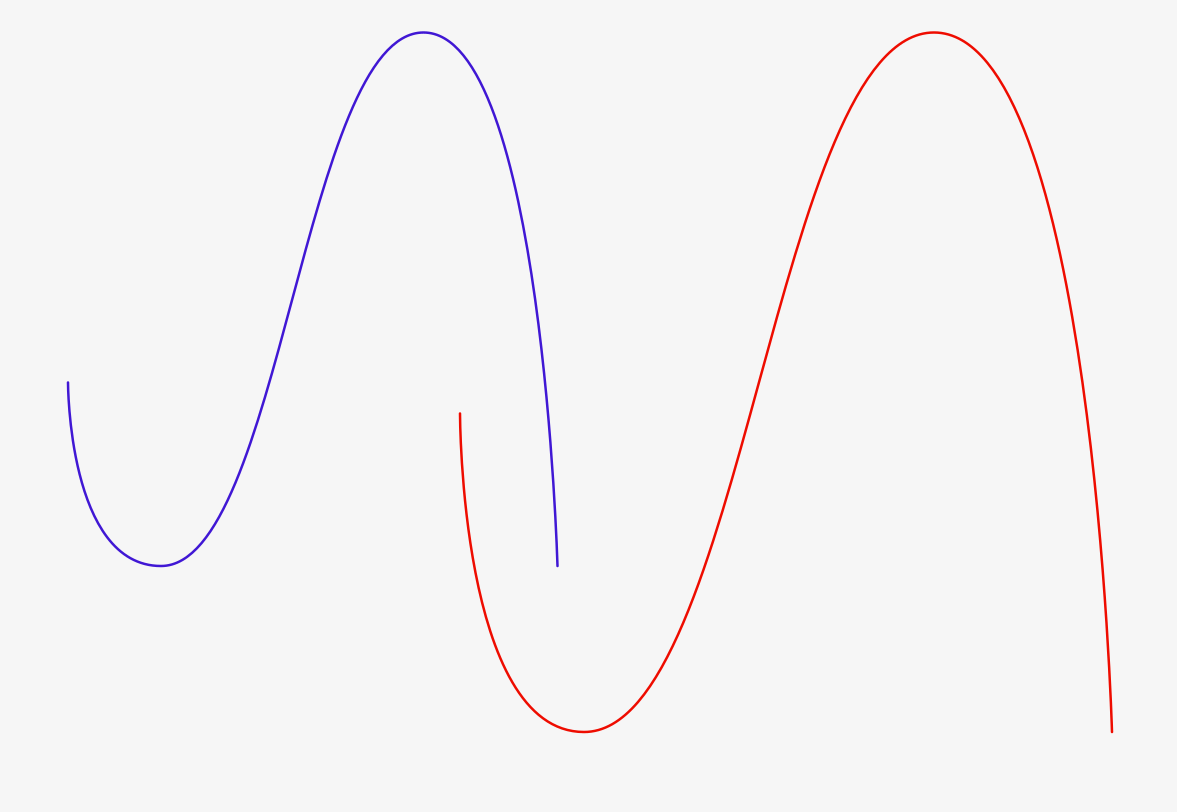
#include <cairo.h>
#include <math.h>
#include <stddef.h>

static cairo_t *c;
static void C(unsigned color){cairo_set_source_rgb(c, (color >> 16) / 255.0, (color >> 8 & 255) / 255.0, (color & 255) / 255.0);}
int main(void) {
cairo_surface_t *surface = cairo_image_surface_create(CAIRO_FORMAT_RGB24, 1177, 812);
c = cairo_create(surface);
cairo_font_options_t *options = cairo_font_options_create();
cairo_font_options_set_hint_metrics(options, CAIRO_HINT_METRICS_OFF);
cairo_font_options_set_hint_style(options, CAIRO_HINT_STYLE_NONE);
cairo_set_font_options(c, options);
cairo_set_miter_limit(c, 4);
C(0xf6f6f6);
cairo_paint(c);
cairo_new_path(c);
cairo_move_to(c,68,382.5);
cairo_curve_to(c,68,382.5,68,566,161,566);
cairo_curve_to(c,280,566,304.5,32.5,423.5,32.5);
cairo_curve_to(c,542.5,32.5,557.5,566,557.5,566);
C(0x4017d4);
cairo_set_line_width(c,2.5);
cairo_set_line_cap(c,CAIRO_LINE_CAP_ROUND);
cairo_stroke(c);
cairo_new_path(c);
cairo_move_to(c,460,413.5);
cairo_curve_to(c,460,413.5,460,732,584,732);
cairo_curve_to(c,742.5,732,775.5,32.5,934,32.5);
cairo_curve_to(c,1092.5,32.5,1112,732,1112,732);
C(0xee0c00);
cairo_stroke(c);
cairo_surface_write_to_png(surface, "o.png");
cairo_font_options_destroy(options);
cairo_destroy(c);
cairo_surface_destroy(surface);
return 0;
}
